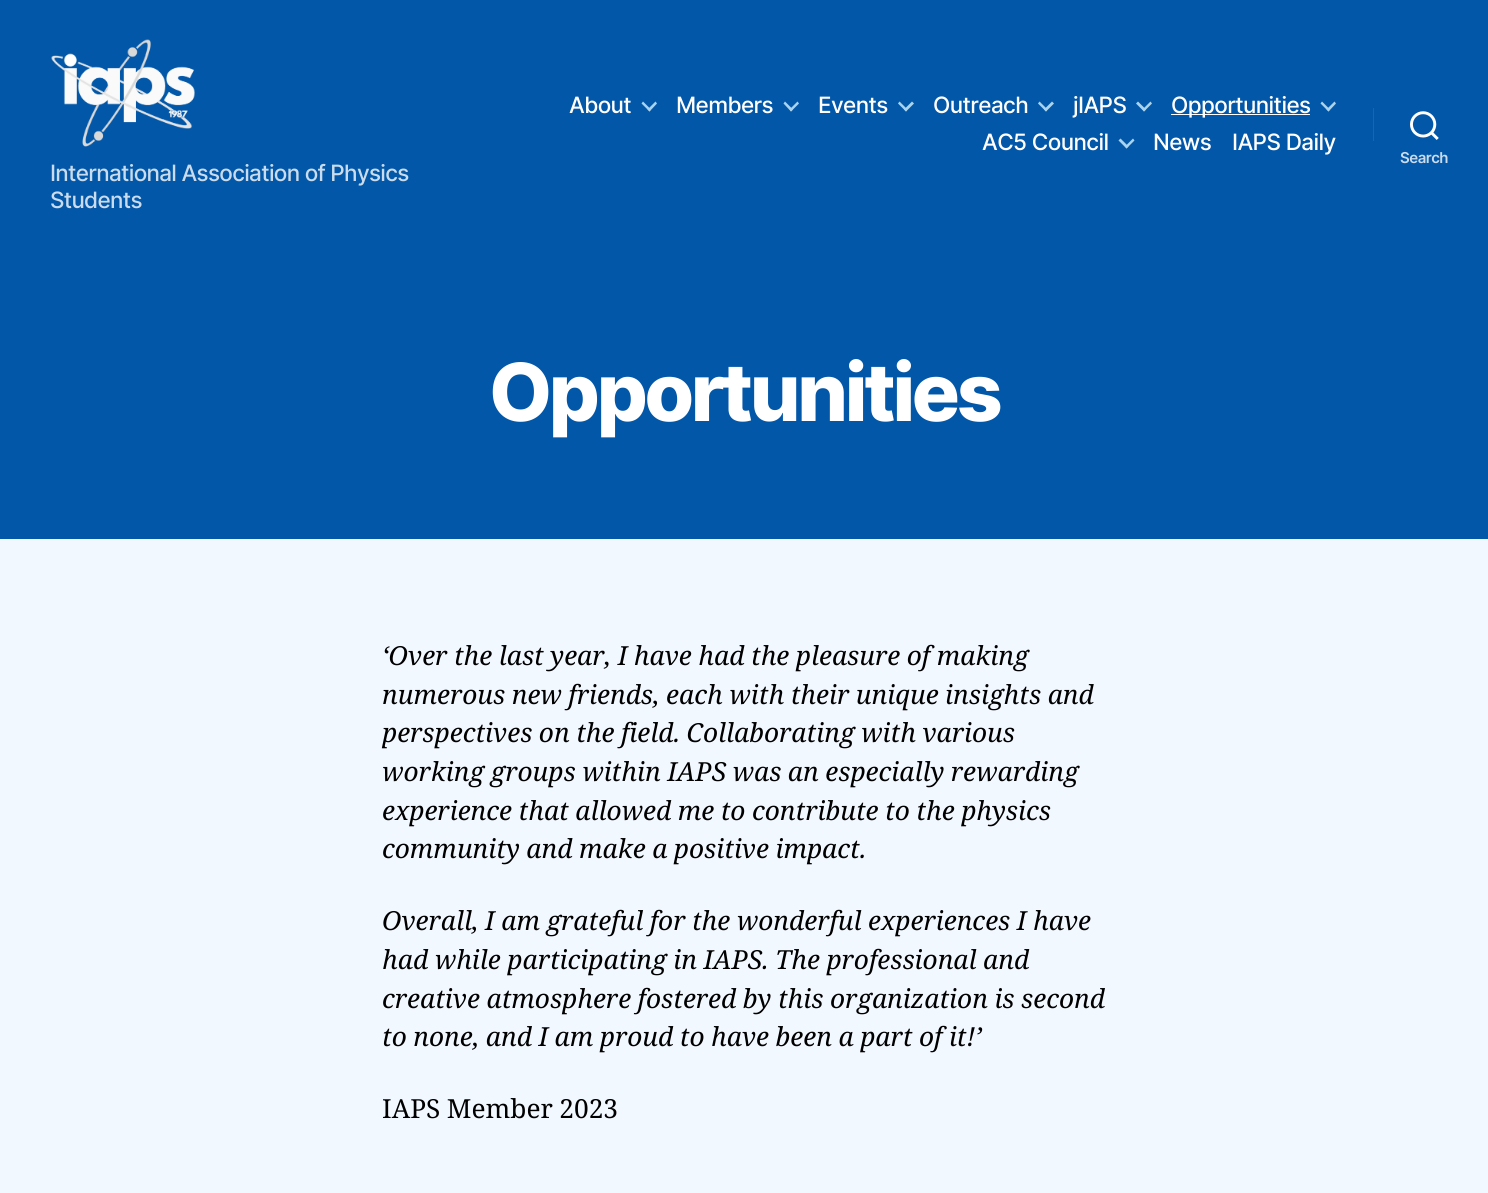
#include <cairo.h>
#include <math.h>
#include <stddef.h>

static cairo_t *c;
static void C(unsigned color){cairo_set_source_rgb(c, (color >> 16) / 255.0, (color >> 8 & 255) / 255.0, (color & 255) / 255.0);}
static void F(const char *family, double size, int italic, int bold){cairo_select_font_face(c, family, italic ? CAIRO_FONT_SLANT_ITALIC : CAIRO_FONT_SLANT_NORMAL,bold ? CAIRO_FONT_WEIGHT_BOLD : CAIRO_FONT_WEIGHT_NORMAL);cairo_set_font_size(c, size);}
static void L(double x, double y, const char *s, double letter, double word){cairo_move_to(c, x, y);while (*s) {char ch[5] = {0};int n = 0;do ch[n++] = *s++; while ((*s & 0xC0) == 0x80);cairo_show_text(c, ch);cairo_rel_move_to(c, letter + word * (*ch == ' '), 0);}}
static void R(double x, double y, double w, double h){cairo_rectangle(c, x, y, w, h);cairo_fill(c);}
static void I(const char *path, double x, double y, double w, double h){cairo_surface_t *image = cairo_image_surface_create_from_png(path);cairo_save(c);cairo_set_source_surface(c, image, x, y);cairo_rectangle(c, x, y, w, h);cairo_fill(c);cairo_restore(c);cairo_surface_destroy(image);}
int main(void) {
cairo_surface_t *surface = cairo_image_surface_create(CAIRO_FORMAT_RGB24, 1488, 1193);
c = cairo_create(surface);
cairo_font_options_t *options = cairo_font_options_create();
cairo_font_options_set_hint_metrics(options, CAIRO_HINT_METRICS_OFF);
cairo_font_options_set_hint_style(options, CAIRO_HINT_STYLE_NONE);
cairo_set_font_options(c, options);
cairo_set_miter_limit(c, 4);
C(0xf2f8ff);
cairo_paint(c);
C(0x0257a8);
R(0,0,1488,539);
F("Inter Medium",22.5,0,0);
C(0xffffff);
L(569,113,"About",-.6,0);
C(0xaad3ed);
cairo_new_path(c);
cairo_move_to(c,641.5,103.5);
cairo_line_to(c,643,101.5);
cairo_line_to(c,651,109.5);
cairo_line_to(c,649.5,111.5);
cairo_close_path(c);
cairo_fill(c);
cairo_new_path(c);
cairo_move_to(c,647.5,109.5);
cairo_line_to(c,655.5,101.5);
cairo_line_to(c,657,103.5);
cairo_line_to(c,649.5,111.5);
cairo_close_path(c);
cairo_fill(c);
C(0xffffff);
L(676,113,"Members",-.6,0);
C(0xaad3ed);
cairo_new_path(c);
cairo_move_to(c,783.5,103.5);
cairo_line_to(c,785,101.5);
cairo_line_to(c,793,109.5);
cairo_line_to(c,791,111.5);
cairo_close_path(c);
cairo_fill(c);
cairo_new_path(c);
cairo_move_to(c,789.5,109.5);
cairo_line_to(c,797.5,101.5);
cairo_line_to(c,799,103.5);
cairo_line_to(c,791,111.5);
cairo_close_path(c);
cairo_fill(c);
C(0xffffff);
L(818,113,"Events",-.6,0);
C(0xaad3ed);
cairo_new_path(c);
cairo_move_to(c,898,103.5);
cairo_line_to(c,899.5,101.5);
cairo_line_to(c,907.5,109.5);
cairo_line_to(c,906,111.5);
cairo_close_path(c);
cairo_fill(c);
cairo_new_path(c);
cairo_move_to(c,904,109.5);
cairo_line_to(c,912,101.5);
cairo_line_to(c,914,103.5);
cairo_line_to(c,906,111.5);
cairo_close_path(c);
cairo_fill(c);
C(0xffffff);
L(933,113,"Outreach",-.6,0);
C(0xaad3ed);
cairo_new_path(c);
cairo_move_to(c,1038,103.5);
cairo_line_to(c,1039.5,101.5);
cairo_line_to(c,1047.5,109.5);
cairo_line_to(c,1046,111.5);
cairo_close_path(c);
cairo_fill(c);
cairo_new_path(c);
cairo_move_to(c,1044,109.5);
cairo_line_to(c,1052,101.5);
cairo_line_to(c,1054,103.5);
cairo_line_to(c,1046,111.5);
cairo_close_path(c);
cairo_fill(c);
C(0xffffff);
L(1073,113,"jIAPS",-.6,0);
C(0xaad3ed);
cairo_new_path(c);
cairo_move_to(c,1136,103.5);
cairo_line_to(c,1138,101.5);
cairo_line_to(c,1146,109.5);
cairo_line_to(c,1144,111.5);
cairo_close_path(c);
cairo_fill(c);
cairo_new_path(c);
cairo_move_to(c,1142.5,109.5);
cairo_line_to(c,1150.5,101.5);
cairo_line_to(c,1152,103.5);
cairo_line_to(c,1144,111.5);
cairo_close_path(c);
cairo_fill(c);
C(0xffffff);
R(1171,114,139,1);
L(1171,113,"Opportunities",-.6,0);
C(0xaad3ed);
cairo_new_path(c);
cairo_move_to(c,1320.5,103.5);
cairo_line_to(c,1322,101.5);
cairo_line_to(c,1330,109.5);
cairo_line_to(c,1328.5,111.5);
cairo_close_path(c);
cairo_fill(c);
cairo_new_path(c);
cairo_move_to(c,1326.5,109.5);
cairo_line_to(c,1334.5,101.5);
cairo_line_to(c,1336,103.5);
cairo_line_to(c,1328.5,111.5);
cairo_close_path(c);
cairo_fill(c);
C(0xffffff);
L(982,150,"AC5 Council",-.6,0);
C(0xaad3ed);
cairo_new_path(c);
cairo_move_to(c,1118.5,140.5);
cairo_line_to(c,1120.5,138.5);
cairo_line_to(c,1128.5,146.5);
cairo_line_to(c,1126.5,148.5);
cairo_close_path(c);
cairo_fill(c);
cairo_new_path(c);
cairo_move_to(c,1125,146.5);
cairo_line_to(c,1133,138.5);
cairo_line_to(c,1134.5,140.5);
cairo_line_to(c,1126.5,148.5);
cairo_close_path(c);
cairo_fill(c);
C(0xffffff);
L(1153,150,"News",-.6,0);
L(1232,150,"IAPS Daily",-.6,0);
C(0x006cd1);
R(1373,108,1,33);
I("1.png",1410,111,29,29);
F("Inter SemiBold",15,0,0);
C(0xc9dbec);
L(1400,163,"Search",-.5,0);
I("2.png",51,39,144,108);
F("Inter Medium",22.5,0,0);
L(50,181,"International Association of Physics",-.7,0);
L(50,208,"Students",-.7,0);
F("Inter ExtraBold",80,0,0);
C(0xffffff);
L(489,421,"Opportunities",-3.3,0);
F("Noto Serif",26.25,1,0);
C(0x000000);
L(382,665,"‘Over the last year, I have had the pleasure of making",0,-.3);
L(382,704,"numerous new friends, each with their unique insights and",0,-.3);
L(382,742,"perspectives on the field. Collaborating with various",0,-.3);
L(382,781,"working groups within IAPS was an especially rewarding",0,-.3);
L(382,820,"experience that allowed me to contribute to the physics",0,-.3);
L(382,858,"community and make a positive impact.",0,-.3);
L(382,930,"Overall, I am grateful for the wonderful experiences I have",0,-.3);
L(382,969,"had while participating in IAPS. The professional and",0,-.3);
L(382,1008,"creative atmosphere fostered by this organization is second",0,-.3);
L(382,1046,"to none, and I am proud to have been a part of it!’",0,-.3);
F("Noto Serif",26.25,0,0);
L(382,1118,"IAPS Member 2023",0,-.3);
cairo_surface_write_to_png(surface, "o.png");
cairo_font_options_destroy(options);
cairo_destroy(c);
cairo_surface_destroy(surface);
return 0;
}
